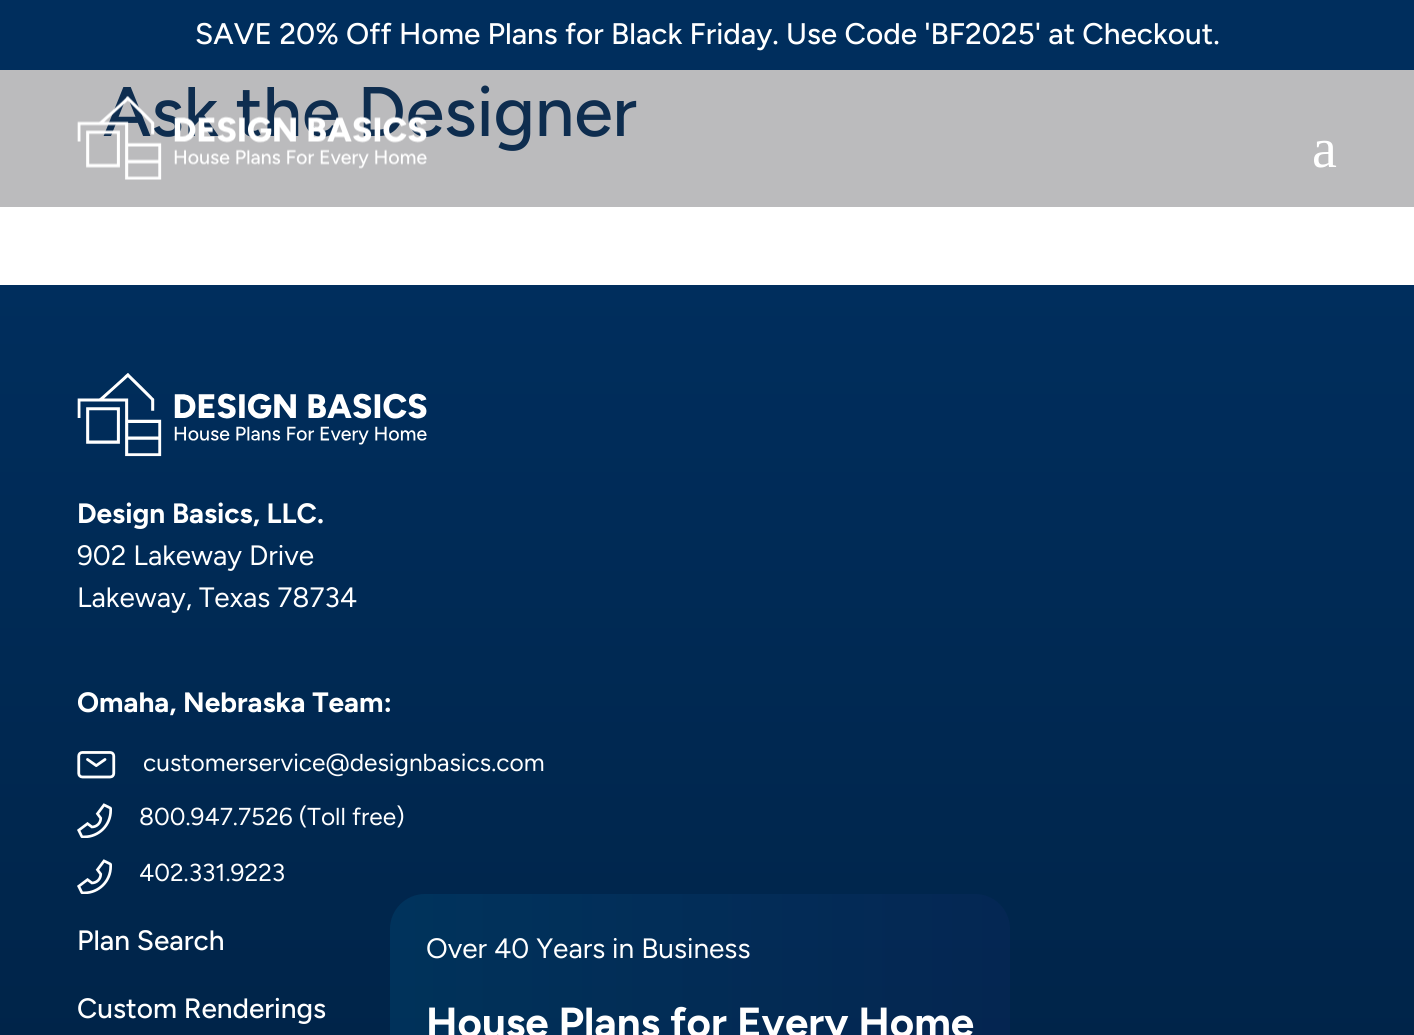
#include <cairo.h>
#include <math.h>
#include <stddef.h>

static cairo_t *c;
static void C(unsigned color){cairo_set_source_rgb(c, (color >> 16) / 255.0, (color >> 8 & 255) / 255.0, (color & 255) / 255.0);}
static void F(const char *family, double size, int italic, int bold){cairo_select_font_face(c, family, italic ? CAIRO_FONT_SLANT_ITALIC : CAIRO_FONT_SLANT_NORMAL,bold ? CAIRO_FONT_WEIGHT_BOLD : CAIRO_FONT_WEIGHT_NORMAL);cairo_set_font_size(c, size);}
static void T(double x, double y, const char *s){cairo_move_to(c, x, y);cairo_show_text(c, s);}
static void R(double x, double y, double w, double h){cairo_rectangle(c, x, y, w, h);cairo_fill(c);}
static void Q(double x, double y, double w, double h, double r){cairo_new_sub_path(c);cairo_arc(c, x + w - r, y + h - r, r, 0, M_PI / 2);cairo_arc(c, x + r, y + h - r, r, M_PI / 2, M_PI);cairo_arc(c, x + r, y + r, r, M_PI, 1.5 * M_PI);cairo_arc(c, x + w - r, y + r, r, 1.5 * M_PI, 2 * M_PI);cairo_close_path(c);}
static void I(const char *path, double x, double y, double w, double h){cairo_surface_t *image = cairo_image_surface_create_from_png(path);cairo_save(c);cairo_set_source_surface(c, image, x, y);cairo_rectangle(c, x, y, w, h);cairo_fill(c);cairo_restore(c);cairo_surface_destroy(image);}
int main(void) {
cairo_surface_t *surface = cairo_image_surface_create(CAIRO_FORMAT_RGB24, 1414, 1035);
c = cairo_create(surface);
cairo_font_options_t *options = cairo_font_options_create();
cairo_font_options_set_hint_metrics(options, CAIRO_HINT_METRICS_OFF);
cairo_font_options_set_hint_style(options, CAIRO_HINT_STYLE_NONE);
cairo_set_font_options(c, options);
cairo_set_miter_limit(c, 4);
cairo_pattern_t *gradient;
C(0xffffff);
cairo_paint(c);
C(0xbbbbbd);
R(0,70,1414,137);
C(0x002e5d);
R(0,0,1414,70);
F("Figtree Medium",29.75,0,0);
C(0xffffff);
T(195,44,"SAVE 20% Off Home Plans for Black Friday. Use Code 'BF2025' at Checkout.");
F("Figtree Medium",70,0,0);
C(0x0e2d4f);
T(103,136,"Ask the Designer");
gradient = cairo_pattern_create_linear(707,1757,707,285);
cairo_pattern_add_color_stop_rgba(gradient,0,0,0.106,0.212,1);
cairo_pattern_add_color_stop_rgba(gradient,1,0,0.18,0.365,1);
cairo_set_source(c,gradient);
cairo_pattern_destroy(gradient);
R(0,285,1414,750);
I("1.png",77,373,350,84);
F("Figtree",28,0,1);
C(0xffffff);
T(77,523,"Design Basics, LLC.");
F("Figtree",28,0,0);
T(77,565,"902 Lakeway Drive");
T(77,607,"Lakeway, Texas 78734");
F("Figtree",28,0,1);
T(77,712,"Omaha, Nebraska Team:");
I("2.png",77,751,39,28);
F("Figtree",24.5,0,0);
T(143,771,"customerservice@designbasics.com");
I("3.png",77,803,35,35);
T(139,825,"800.947.7526 (Toll free)");
I("4.png",77,859,35,35);
T(139,881,"402.331.9223");
F("Figtree Medium",28,0,0);
T(77,950,"Plan Search");
T(77,1018,"Custom Renderings");
gradient = cairo_pattern_create_linear(388,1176,1012,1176);
cairo_pattern_add_color_stop_rgba(gradient,0,0,0.682,0.937,.1);
cairo_pattern_add_color_stop_rgba(gradient,1,0.18,0.192,0.573,.1);
cairo_set_source(c,gradient);
cairo_pattern_destroy(gradient);
Q(390,894,620,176,35);
cairo_fill(c);
F("Figtree",28,0,0);
C(0xffffff);
T(426,958,"Over 40 Years in Business");
F("Figtree",42,0,1);
T(426,1037,"House Plans for Every Home");
I("5.png",77,96,350,84);
F("Liberation Serif",56,0,0);
T(1312,167,"a");
cairo_surface_write_to_png(surface, "o.png");
cairo_font_options_destroy(options);
cairo_destroy(c);
cairo_surface_destroy(surface);
return 0;
}
